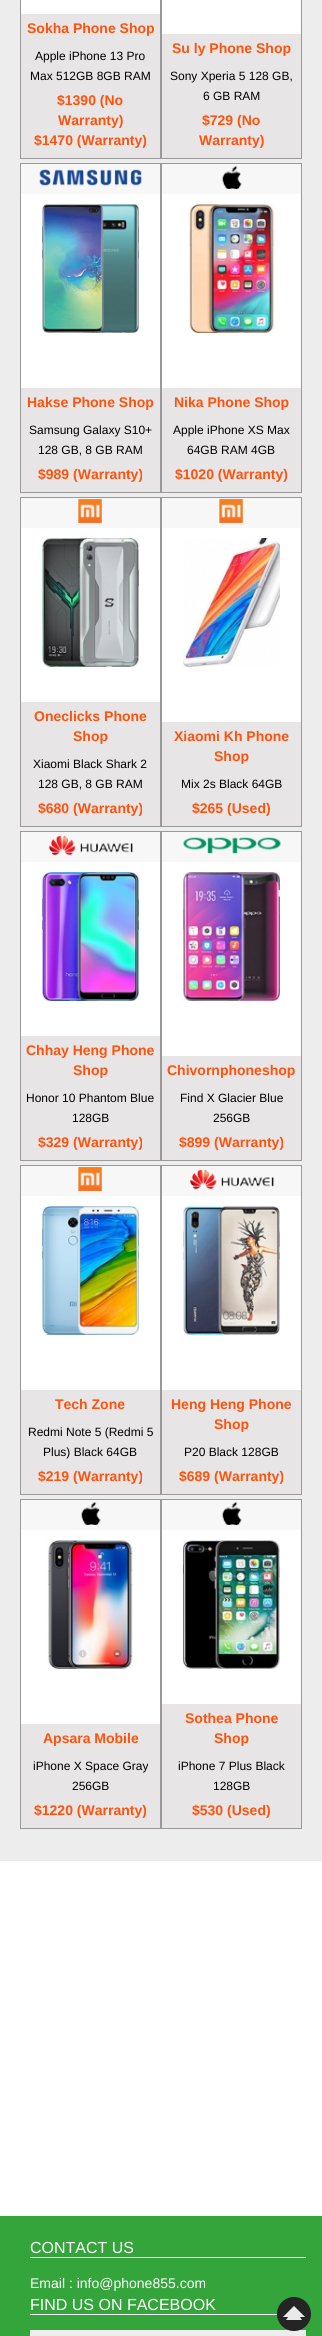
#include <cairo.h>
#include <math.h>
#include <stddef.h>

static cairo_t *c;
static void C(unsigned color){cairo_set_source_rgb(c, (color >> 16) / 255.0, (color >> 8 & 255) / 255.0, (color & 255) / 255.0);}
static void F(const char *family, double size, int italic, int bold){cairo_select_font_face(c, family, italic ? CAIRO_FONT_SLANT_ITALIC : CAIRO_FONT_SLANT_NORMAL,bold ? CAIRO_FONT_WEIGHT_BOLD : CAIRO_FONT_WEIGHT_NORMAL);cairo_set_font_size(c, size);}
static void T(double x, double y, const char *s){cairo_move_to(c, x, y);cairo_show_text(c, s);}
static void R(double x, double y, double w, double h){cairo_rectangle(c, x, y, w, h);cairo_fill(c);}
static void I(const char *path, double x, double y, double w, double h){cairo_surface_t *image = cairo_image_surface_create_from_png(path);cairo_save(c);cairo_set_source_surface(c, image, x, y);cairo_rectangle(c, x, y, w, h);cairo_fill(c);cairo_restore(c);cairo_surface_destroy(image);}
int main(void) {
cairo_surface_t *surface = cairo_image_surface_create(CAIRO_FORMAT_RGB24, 322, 2336);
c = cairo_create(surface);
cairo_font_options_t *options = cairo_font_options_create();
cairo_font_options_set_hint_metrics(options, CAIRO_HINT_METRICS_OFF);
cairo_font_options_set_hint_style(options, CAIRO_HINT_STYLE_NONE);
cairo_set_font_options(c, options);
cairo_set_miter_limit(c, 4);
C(0xffffff);
cairo_paint(c);
C(0xededed);
R(0,0,322,1861);
C(0xffffff);
R(21,0,139,14);
cairo_rectangle(c,20.5,-.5,140,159);
C(0x999999);
cairo_set_line_width(c,1);
cairo_stroke(c);
C(0xe7e5e6);
R(21,14,139,144);
F("Liberation Sans",14,0,1);
C(0xff530d);
T(27,33,"Sokha Phone Shop");
F("Liberation Sans",12,0,0);
C(0x000000);
T(35,60,"Apple iPhone 13 Pro");
T(30,80,"Max 512GB 8GB RAM");
F("Liberation Sans",14,0,1);
C(0xff530d);
T(57,105,"$1390 (No");
T(58,125,"Warranty)");
T(34,145,"$1470 (Warranty)");
C(0xffffff);
R(162,0,139,34);
cairo_rectangle(c,161.5,-.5,140,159);
C(0x999999);
cairo_stroke(c);
C(0xe7e5e6);
R(162,34,139,124);
C(0xff530d);
T(172,53,"Su ly Phone Shop");
F("Liberation Sans",12,0,0);
C(0x000000);
T(170,80,"Sony Xperia 5 128 GB,");
T(203,100,"6 GB RAM");
F("Liberation Sans",14,0,1);
C(0xff530d);
T(202,125,"$729 (No");
T(199,145,"Warranty)");
C(0xffffff);
R(21,194,139,194);
cairo_rectangle(c,20.5,163.5,140,329);
C(0x999999);
cairo_stroke(c);
C(0xf7f7f7);
R(21,164,139,30);
I("1.png",39,169,103,17);
I("2.png",42,204,97,129);
C(0xe7e5e6);
R(21,388,139,104);
C(0xff530d);
T(27,407,"Hakse Phone Shop");
F("Liberation Sans",12,0,0);
C(0x000000);
T(29,434,"Samsung Galaxy S10+");
T(38,454,"128 GB, 8 GB RAM");
F("Liberation Sans",14,0,1);
C(0xff530d);
T(38,479,"$989 (Warranty)");
C(0xffffff);
R(162,194,139,194);
cairo_rectangle(c,161.5,163.5,140,329);
C(0x999999);
cairo_stroke(c);
C(0xf7f7f7);
R(162,164,139,30);
I("3.png",222,166,20,23);
I("4.png",188,204,88,129);
C(0xe7e5e6);
R(162,388,139,104);
C(0xff530d);
T(174,407,"Nika Phone Shop");
F("Liberation Sans",12,0,0);
C(0x000000);
T(173,434,"Apple iPhone XS Max");
T(187,454,"64GB RAM 4GB");
F("Liberation Sans",14,0,1);
C(0xff530d);
T(175,479,"$1020 (Warranty)");
C(0xffffff);
R(21,528,139,174);
cairo_rectangle(c,20.5,497.5,140,329);
C(0x999999);
cairo_stroke(c);
C(0xf7f7f7);
R(21,498,139,30);
I("5.png",78,499,24,24);
I("6.png",42,538,97,129);
C(0xe7e5e6);
R(21,702,139,124);
C(0xff530d);
T(34,721,"Oneclicks Phone");
T(73,741,"Shop");
F("Liberation Sans",12,0,0);
C(0x000000);
T(33,768,"Xiaomi Black Shark 2");
T(38,788,"128 GB, 8 GB RAM");
F("Liberation Sans",14,0,1);
C(0xff530d);
T(38,813,"$680 (Warranty)");
C(0xffffff);
R(162,528,139,194);
cairo_rectangle(c,161.5,497.5,140,329);
C(0x999999);
cairo_stroke(c);
C(0xf7f7f7);
R(162,498,139,30);
I("7.png",219,499,24,24);
I("8.png",183,538,97,129);
C(0xe7e5e6);
R(162,722,139,104);
C(0xff530d);
T(174,741,"Xiaomi Kh Phone");
T(214,761,"Shop");
F("Liberation Sans",12,0,0);
C(0x000000);
T(181,788,"Mix 2s Black 64GB");
F("Liberation Sans",14,0,1);
C(0xff530d);
T(192,813,"$265 (Used)");
C(0xffffff);
R(21,862,139,174);
cairo_rectangle(c,20.5,831.5,140,329);
C(0x999999);
cairo_stroke(c);
C(0xf7f7f7);
R(21,832,139,30);
I("9.png",49,835,84,21);
I("10.png",42,872,97,129);
C(0xe7e5e6);
R(21,1036,139,124);
C(0xff530d);
T(26,1055,"Chhay Heng Phone");
T(73,1075,"Shop");
F("Liberation Sans",12,0,0);
C(0x000000);
T(26,1102,"Honor 10 Phantom Blue");
T(72,1122,"128GB");
F("Liberation Sans",14,0,1);
C(0xff530d);
T(38,1147,"$329 (Warranty)");
C(0xffffff);
R(162,862,139,194);
cairo_rectangle(c,161.5,831.5,140,329);
C(0x999999);
cairo_stroke(c);
C(0xf7f7f7);
R(162,832,139,30);
I("11.png",183,837,98,17);
I("12.png",183,872,97,129);
C(0xe7e5e6);
R(162,1056,139,104);
C(0xff530d);
T(167,1075,"Chivornphoneshop");
F("Liberation Sans",12,0,0);
C(0x000000);
T(180,1102,"Find X Glacier Blue");
T(213,1122,"256GB");
F("Liberation Sans",14,0,1);
C(0xff530d);
T(179,1147,"$899 (Warranty)");
C(0xffffff);
R(21,1196,139,194);
cairo_rectangle(c,20.5,1165.5,140,329);
C(0x999999);
cairo_stroke(c);
C(0xf7f7f7);
R(21,1166,139,30);
I("5.png",78,1167,24,24);
I("13.png",42,1206,97,129);
C(0xe7e5e6);
R(21,1390,139,104);
C(0xff530d);
T(55,1409,"Tech Zone");
F("Liberation Sans",12,0,0);
C(0x000000);
T(28,1436,"Redmi Note 5 (Redmi 5");
T(43,1456,"Plus) Black 64GB");
F("Liberation Sans",14,0,1);
C(0xff530d);
T(38,1481,"$219 (Warranty)");
C(0xffffff);
R(162,1196,139,194);
cairo_rectangle(c,161.5,1165.5,140,329);
C(0x999999);
cairo_stroke(c);
C(0xf7f7f7);
R(162,1166,139,30);
I("14.png",190,1169,84,21);
I("15.png",183,1206,97,129);
C(0xe7e5e6);
R(162,1390,139,104);
C(0xff530d);
T(171,1409,"Heng Heng Phone");
T(214,1429,"Shop");
F("Liberation Sans",12,0,0);
C(0x000000);
T(184,1456,"P20 Black 128GB");
F("Liberation Sans",14,0,1);
C(0xff530d);
T(179,1481,"$689 (Warranty)");
C(0xffffff);
R(21,1530,139,194);
cairo_rectangle(c,20.5,1499.5,140,329);
C(0x999999);
cairo_stroke(c);
C(0xf7f7f7);
R(21,1500,139,30);
I("16.png",81,1502,20,23);
I("17.png",47,1540,86,129);
C(0xe7e5e6);
R(21,1724,139,104);
C(0xff530d);
T(43,1743,"Apsara Mobile");
F("Liberation Sans",12,0,0);
C(0x000000);
T(33,1770,"iPhone X Space Gray");
T(72,1790,"256GB");
F("Liberation Sans",14,0,1);
C(0xff530d);
T(34,1815,"$1220 (Warranty)");
C(0xffffff);
R(162,1530,139,174);
cairo_rectangle(c,161.5,1499.5,140,329);
C(0x999999);
cairo_stroke(c);
C(0xf7f7f7);
R(162,1500,139,30);
I("3.png",222,1502,20,23);
I("18.png",183,1540,97,129);
C(0xe7e5e6);
R(162,1704,139,124);
C(0xff530d);
T(185,1723,"Sothea Phone");
T(214,1743,"Shop");
F("Liberation Sans",12,0,0);
C(0x000000);
T(178,1770,"iPhone 7 Plus Black");
T(213,1790,"128GB");
F("Liberation Sans",14,0,1);
C(0xff530d);
T(192,1815,"$530 (Used)");
C(0x34a53b);
R(0,2216,322,120);
C(0xffffff);
R(30,2257,276,1);
F("Liberation Sans",16,0,0);
T(30,2253,"CONTACT US");
F("Liberation Sans",14,0,0);
T(30,2288,"Email : info@phone855.com");
R(30,2314,248,1);
F("Liberation Sans",16,0,0);
T(30,2310,"FIND US ON FACEBOOK");
C(0xededed);
R(30,2330,276,6);
I("19.png",277,2297,34,34);
cairo_surface_write_to_png(surface, "o.png");
cairo_font_options_destroy(options);
cairo_destroy(c);
cairo_surface_destroy(surface);
return 0;
}
